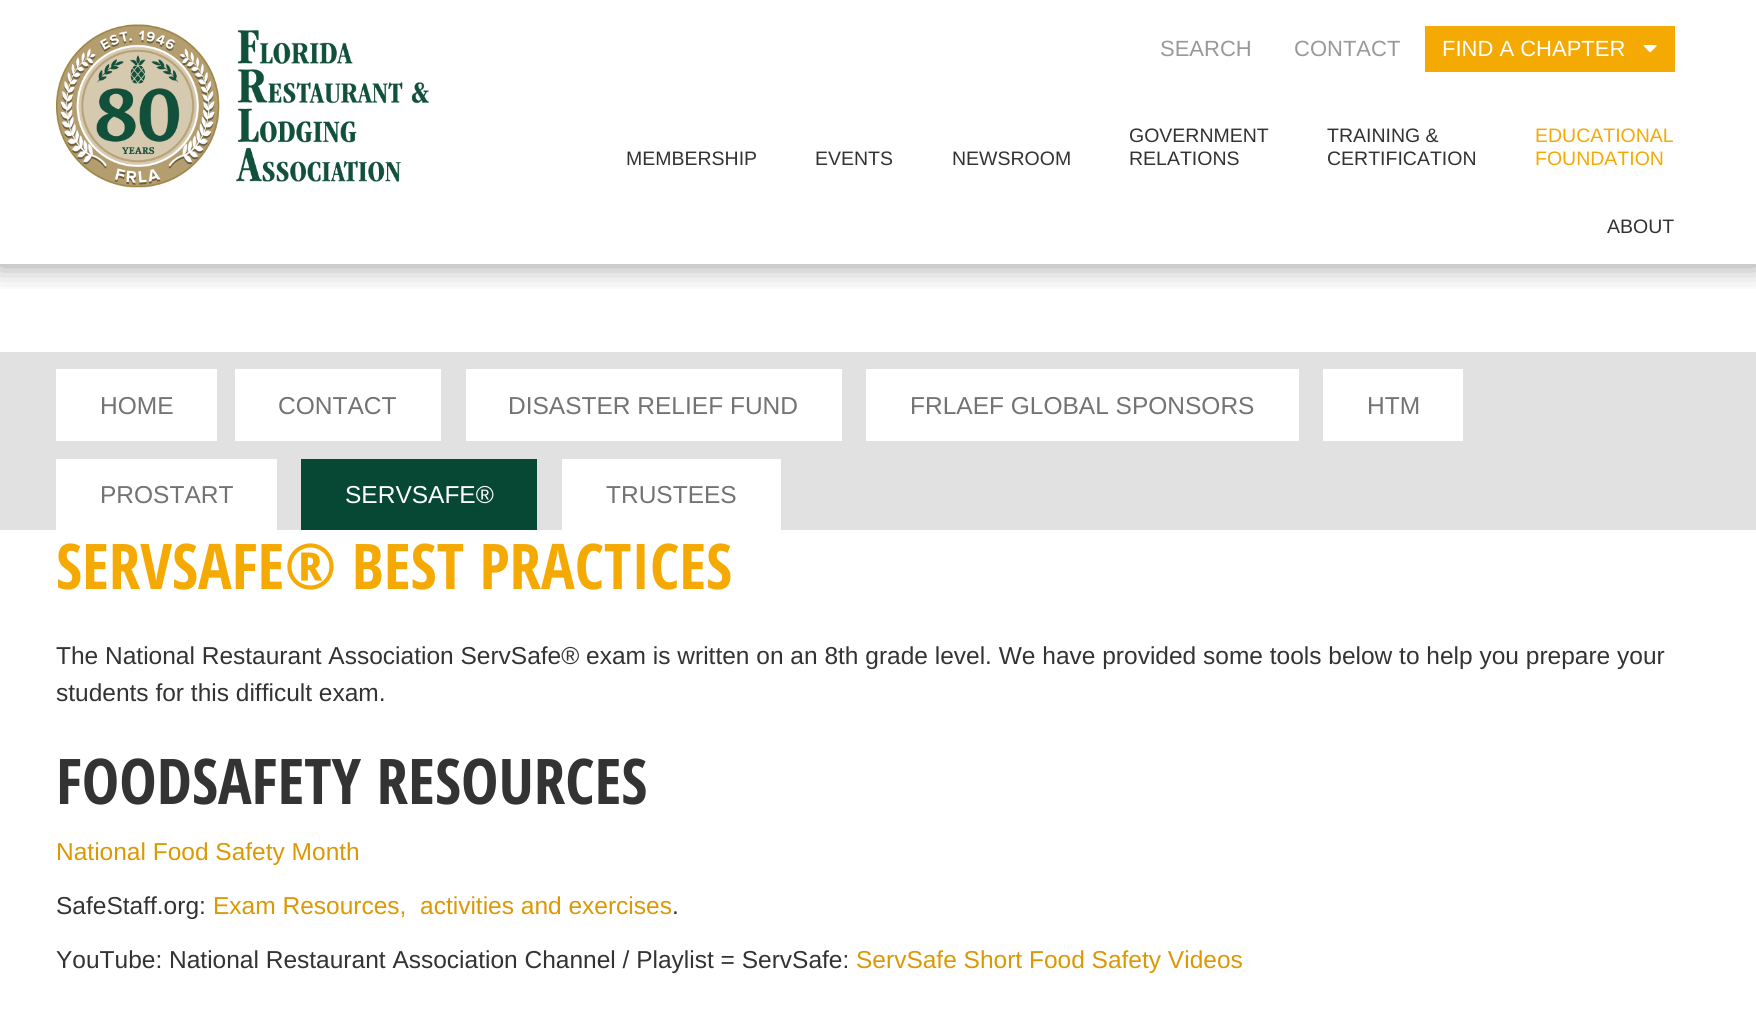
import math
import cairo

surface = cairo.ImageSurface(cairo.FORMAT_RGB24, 1756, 1011)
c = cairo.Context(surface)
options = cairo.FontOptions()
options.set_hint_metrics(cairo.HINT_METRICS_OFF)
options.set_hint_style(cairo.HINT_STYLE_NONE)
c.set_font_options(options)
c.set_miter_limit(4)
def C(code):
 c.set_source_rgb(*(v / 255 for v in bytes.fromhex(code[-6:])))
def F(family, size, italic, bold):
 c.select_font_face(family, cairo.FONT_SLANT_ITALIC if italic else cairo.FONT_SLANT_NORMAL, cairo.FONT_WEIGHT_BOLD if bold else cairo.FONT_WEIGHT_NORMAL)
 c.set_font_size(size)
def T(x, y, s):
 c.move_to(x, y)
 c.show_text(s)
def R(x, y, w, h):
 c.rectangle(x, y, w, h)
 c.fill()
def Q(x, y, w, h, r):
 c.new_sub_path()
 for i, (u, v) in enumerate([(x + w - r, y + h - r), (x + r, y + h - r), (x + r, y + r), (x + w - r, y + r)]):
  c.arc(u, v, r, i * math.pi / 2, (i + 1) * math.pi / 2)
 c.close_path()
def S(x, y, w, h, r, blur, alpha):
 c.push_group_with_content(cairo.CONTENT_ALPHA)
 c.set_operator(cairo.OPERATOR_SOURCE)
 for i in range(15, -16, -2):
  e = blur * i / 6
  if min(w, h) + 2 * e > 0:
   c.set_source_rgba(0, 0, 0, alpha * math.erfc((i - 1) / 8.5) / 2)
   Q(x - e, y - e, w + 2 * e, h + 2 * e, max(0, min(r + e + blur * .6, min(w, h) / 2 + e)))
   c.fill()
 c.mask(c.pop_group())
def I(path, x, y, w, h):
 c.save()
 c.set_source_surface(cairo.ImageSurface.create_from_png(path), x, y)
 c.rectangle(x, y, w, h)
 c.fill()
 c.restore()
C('ffffff')
c.paint()
c.save()
c.rectangle(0,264,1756,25)
c.clip()
C('000000')
S(-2,-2,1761,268,0,14,.4)
c.restore()
I('1.png',56,24,373,164)
F('Liberation Sans',22,0,0)
C('999999')
T(1160,56,'SEARCH')
T(1294,56,'CONTACT')
C('f5a903')
R(1425,26,250,46)
C('ffffff')
T(1442,56,'FIND A CHAPTER')
I('2.png',1643,45,14,8)
F('Liberation Sans',19.5,0,0)
C('333333')
T(626,165,'MEMBERSHIP')
T(815,165,'EVENTS')
T(952,165,'NEWSROOM')
T(1129,142,'GOVERNMENT')
T(1129,165,'RELATIONS')
T(1327,142,'TRAINING &')
T(1327,165,'CERTIFICATION')
C('f5a903')
T(1535,142,'EDUCATIONAL')
T(1535,165,'FOUNDATION')
C('333333')
T(1607,233,'ABOUT')
C('e1e1e1')
R(0,352,1756,178)
C('ffffff')
R(56,369,161,72)
F('Liberation Sans',24.5,0,0)
C('737373')
T(100,414,'HOME')
C('ffffff')
R(235,369,206,72)
C('737373')
T(278,414,'CONTACT')
C('ffffff')
R(466,369,376,72)
C('737373')
T(508,414,'DISASTER RELIEF FUND')
C('ffffff')
R(866,369,433,72)
C('737373')
T(910,414,'FRLAEF GLOBAL SPONSORS')
C('ffffff')
R(1323,369,140,72)
C('737373')
T(1367,414,'HTM')
C('ffffff')
R(56,459,221,71)
C('737373')
T(100,503,'PROSTART')
C('074834')
R(301,459,236,71)
C('ffffff')
T(345,503,'SERVSAFE®')
R(562,459,219,71)
C('737373')
T(606,503,'TRUSTEES')
F('Open Sans Condensed',63,0,1)
C('f5a903')
T(56,589,'SERVSAFE® BEST PRACTICES')
F('Liberation Sans',24.5,0,0)
C('333333')
T(56,664,'The National Restaurant Association ServSafe® exam is written on an 8th grade level. We have provided some tools below to help you prepare your')
T(56,701,'students for this difficult exam.')
F('Open Sans Condensed',63,0,1)
T(56,804,'FOODSAFETY RESOURCES')
F('Liberation Sans',24.5,0,0)
C('dc9803')
T(56,860,'National Food Safety Month')
C('333333')
T(56,914,'SafeStaff.org:')
C('dc9803')
T(213,914,'Exam Resources,')
T(420,914,'activities and exercises')
C('333333')
T(672,914,'.')
T(56,968,'YouTube: National Restaurant Association Channel / Playlist = ServSafe:')
C('dc9803')
T(856,968,'ServSafe Short Food Safety Videos')
surface.write_to_png('o.png')
